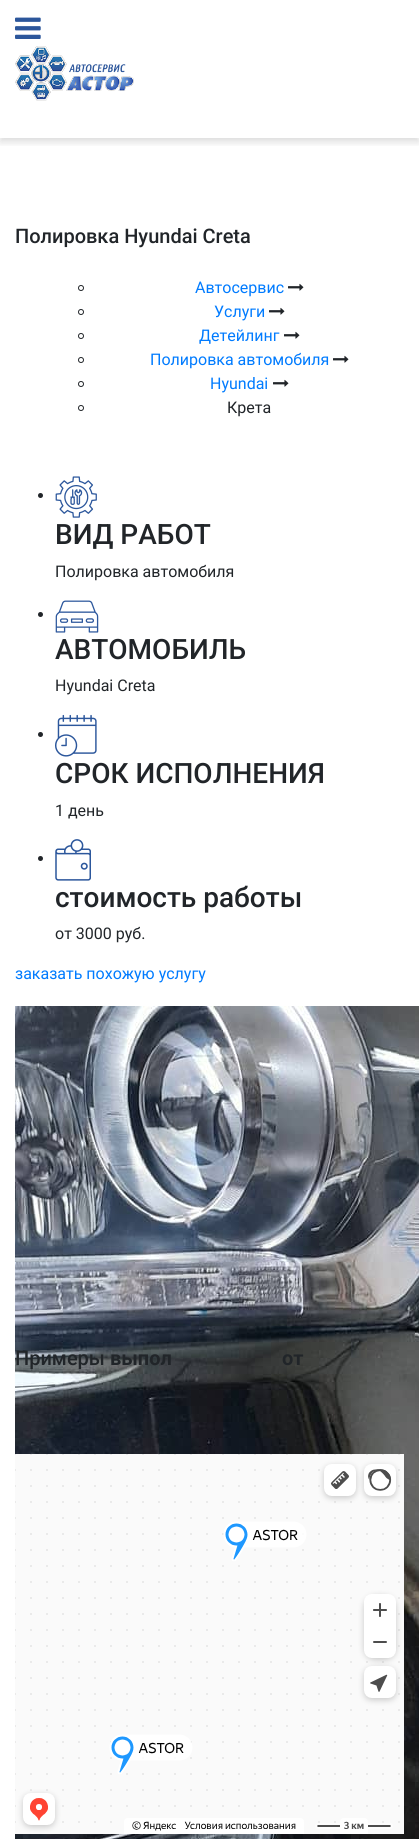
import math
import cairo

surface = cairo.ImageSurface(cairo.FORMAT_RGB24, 419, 1839)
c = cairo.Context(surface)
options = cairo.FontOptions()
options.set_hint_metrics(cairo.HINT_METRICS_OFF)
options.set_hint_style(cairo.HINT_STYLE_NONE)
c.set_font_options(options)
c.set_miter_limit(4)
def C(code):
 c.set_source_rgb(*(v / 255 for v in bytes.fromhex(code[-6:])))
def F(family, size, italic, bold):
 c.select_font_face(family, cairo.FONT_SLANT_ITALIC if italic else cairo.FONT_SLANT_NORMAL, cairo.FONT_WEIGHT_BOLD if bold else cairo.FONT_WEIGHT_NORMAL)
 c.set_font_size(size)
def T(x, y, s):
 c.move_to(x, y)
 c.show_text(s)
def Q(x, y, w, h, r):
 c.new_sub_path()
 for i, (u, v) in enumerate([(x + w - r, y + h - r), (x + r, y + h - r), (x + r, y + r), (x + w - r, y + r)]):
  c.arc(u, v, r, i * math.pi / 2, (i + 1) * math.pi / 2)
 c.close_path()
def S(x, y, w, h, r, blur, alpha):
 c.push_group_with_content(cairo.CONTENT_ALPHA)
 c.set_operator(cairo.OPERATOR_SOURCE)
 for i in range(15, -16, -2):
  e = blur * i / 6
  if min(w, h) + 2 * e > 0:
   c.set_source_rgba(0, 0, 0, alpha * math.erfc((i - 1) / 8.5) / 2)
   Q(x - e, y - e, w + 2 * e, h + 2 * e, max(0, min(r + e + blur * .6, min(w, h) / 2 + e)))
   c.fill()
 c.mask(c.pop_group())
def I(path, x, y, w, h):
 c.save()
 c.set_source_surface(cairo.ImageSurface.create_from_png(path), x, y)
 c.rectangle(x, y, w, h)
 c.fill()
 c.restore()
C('ffffff')
c.paint()
c.save()
c.rectangle(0,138,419,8)
c.clip()
C('000000')
S(0,4,419,138,0,4,.14)
c.restore()
I('1.png',15,17,26,22)
I('2.png',15,46,119,55)
F('Roboto Medium',20,0,0)
C('212529')
T(15,243,'Полировка Hyundai Creta')
c.new_path()
c.arc(81,288,2.5,0,2 * math.pi)
c.set_line_width(1)
c.stroke()
F('Roboto',16,0,0)
C('007bff')
T(195,293,'Автосервис')
I('3.png',288,283,16,8)
c.arc(81,312,2.5,0,2 * math.pi)
C('212529')
c.stroke()
C('007bff')
T(214,317,'Услуги')
I('3.png',269,307,16,8)
c.arc(81,336,2.5,0,2 * math.pi)
C('212529')
c.stroke()
C('007bff')
T(199,341,'Детейлинг')
I('3.png',284,331,16,8)
c.arc(81,360,2.5,0,2 * math.pi)
C('212529')
c.stroke()
C('007bff')
T(150,365,'Полировка автомобиля')
I('3.png',333,355,16,8)
c.arc(81,384,2.5,0,2 * math.pi)
C('212529')
c.stroke()
C('007bff')
T(210,389,'Hyundai')
I('3.png',273,379,16,8)
c.arc(81,408,2.5,0,2 * math.pi)
C('212529')
c.stroke()
T(227,413,'Крета')
c.new_path()
c.arc(40.5,495.5,2.5,0,2 * math.pi)
c.fill()
I('4.png',55,476,42,42)
F('Roboto Medium',28,0,0)
T(55,544,'ВИД РАБОТ')
F('Roboto',16,0,0)
T(55,577,'Полировка автомобиля')
c.new_path()
c.arc(40.5,614.5,2.5,0,2 * math.pi)
c.fill()
I('5.png',55,600,44,33)
F('Roboto Medium',28,0,0)
T(55,659,'АВТОМОБИЛЬ')
F('Roboto',16,0,0)
T(55,691,'Hyundai Creta')
c.new_path()
c.arc(40.5,734.5,2.5,0,2 * math.pi)
c.fill()
I('6.png',55,714,42,43)
F('Roboto Medium',28,0,0)
T(55,783,'СРОК ИСПОЛНЕНИЯ')
F('Roboto',16,0,0)
T(55,816,'1 день')
c.new_path()
c.arc(40.5,858.5,2.5,0,2 * math.pi)
c.fill()
I('7.png',55,839,36,42)
F('Roboto Medium',28,0,0)
T(55,907,'стоимость работы')
F('Roboto',16,0,0)
T(55,939,'от 3000 руб.')
C('007bff')
T(15,979,'заказать похожую услугу')
I('8.png',15,1006,404,833)
F('Roboto Medium',20,0,0)
C('212529')
T(15,1365,'Примеры')
F('Roboto',20,0,1)
T(110,1365,'выпол')
T(282,1365,'от')
I('9.png',15,1454,389,380)
surface.write_to_png('o.png')
